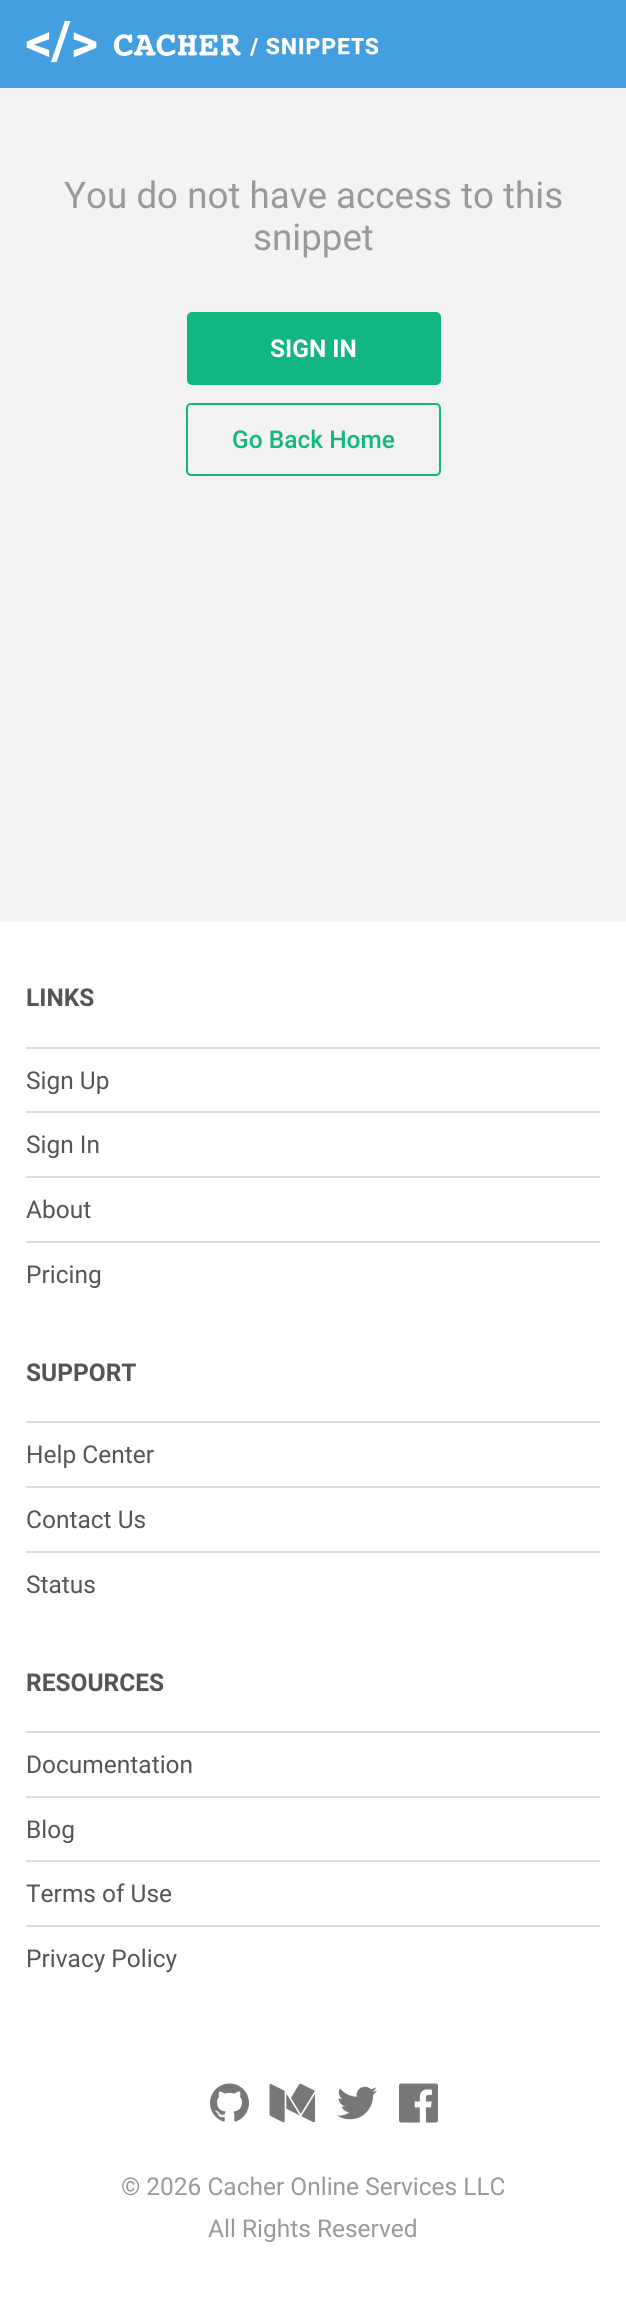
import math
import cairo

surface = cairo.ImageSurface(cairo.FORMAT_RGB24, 626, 2310)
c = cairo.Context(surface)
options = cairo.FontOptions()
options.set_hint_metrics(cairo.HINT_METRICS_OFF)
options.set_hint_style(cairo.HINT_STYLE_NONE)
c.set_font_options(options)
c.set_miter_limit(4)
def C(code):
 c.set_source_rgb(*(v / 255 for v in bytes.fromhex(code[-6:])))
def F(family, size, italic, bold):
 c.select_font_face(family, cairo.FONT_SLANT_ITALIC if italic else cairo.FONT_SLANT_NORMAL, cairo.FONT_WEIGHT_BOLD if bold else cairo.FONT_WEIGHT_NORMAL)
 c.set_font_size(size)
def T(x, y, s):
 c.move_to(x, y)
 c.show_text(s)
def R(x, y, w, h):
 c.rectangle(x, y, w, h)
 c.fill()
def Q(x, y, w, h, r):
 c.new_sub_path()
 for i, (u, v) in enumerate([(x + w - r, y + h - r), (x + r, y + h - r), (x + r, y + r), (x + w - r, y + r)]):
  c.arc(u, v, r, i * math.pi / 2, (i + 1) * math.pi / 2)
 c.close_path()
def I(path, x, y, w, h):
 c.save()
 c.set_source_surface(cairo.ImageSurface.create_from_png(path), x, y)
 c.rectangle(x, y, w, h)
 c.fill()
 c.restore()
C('f3f3f3')
c.paint()
C('439fe0')
R(0,0,626,88)
I('1.png',26,21,353,42)
F('Roboto',36.75,0,0)
C('999999')
T(64,208,'You do not have access to this')
T(253,250,'snippet')
C('11b683')
Q(188,313,252,71,4)
c.fill_preserve()
c.stroke()
F('Roboto',24.5,0,1)
C('ffffff')
T(270,357,'SIGN IN')
Q(187,404,253,71,4)
C('11b683')
c.stroke()
F('Roboto Medium',24.5,0,0)
T(232,448,'Go Back Home')
C('ffffff')
R(0,922,626,1388)
F('Roboto',24.5,0,1)
C('555555')
T(26,1006,'LINKS')
C('dddddd')
R(26,1047,574,2)
F('Roboto',24.5,0,0)
C('555555')
T(26,1089,'Sign Up')
C('dddddd')
R(26,1111,574,2)
C('555555')
T(26,1153,'Sign In')
C('dddddd')
R(26,1176,574,2)
C('555555')
T(26,1218,'About')
C('dddddd')
R(26,1241,574,2)
C('555555')
T(26,1283,'Pricing')
F('Roboto',24.5,0,1)
T(26,1381,'SUPPORT')
C('dddddd')
R(26,1421,574,2)
F('Roboto',24.5,0,0)
C('555555')
T(26,1463,'Help Center')
C('dddddd')
R(26,1486,574,2)
C('555555')
T(26,1528,'Contact Us')
C('dddddd')
R(26,1551,574,2)
C('555555')
T(26,1593,'Status')
F('Roboto',24.5,0,1)
T(26,1691,'RESOURCES')
C('dddddd')
R(26,1731,574,2)
F('Roboto',24.5,0,0)
C('555555')
T(26,1773,'Documentation')
C('dddddd')
R(26,1796,574,2)
C('555555')
T(26,1838,'Blog')
C('dddddd')
R(26,1860,574,2)
C('555555')
T(26,1902,'Terms of Use')
C('dddddd')
R(26,1925,574,2)
C('555555')
T(26,1967,'Privacy Policy')
I('2.png',210,2083,39,39)
I('3.png',269,2083,46,40)
I('4.png',337,2086,40,34)
I('5.png',399,2083,39,40)
C('999999')
T(121,2195,'© 2026 Cacher Online Services LLC')
T(208,2237,'All Rights Reserved')
surface.write_to_png('o.png')
